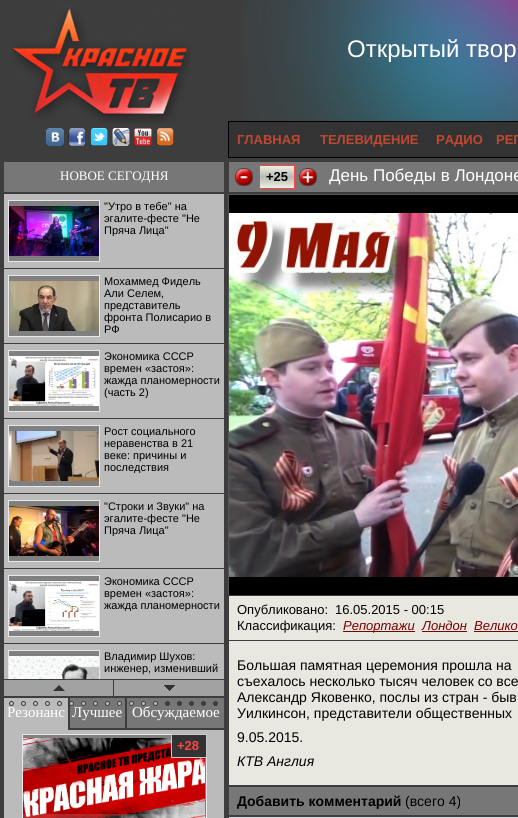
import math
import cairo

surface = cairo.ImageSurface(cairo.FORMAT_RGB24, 518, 818)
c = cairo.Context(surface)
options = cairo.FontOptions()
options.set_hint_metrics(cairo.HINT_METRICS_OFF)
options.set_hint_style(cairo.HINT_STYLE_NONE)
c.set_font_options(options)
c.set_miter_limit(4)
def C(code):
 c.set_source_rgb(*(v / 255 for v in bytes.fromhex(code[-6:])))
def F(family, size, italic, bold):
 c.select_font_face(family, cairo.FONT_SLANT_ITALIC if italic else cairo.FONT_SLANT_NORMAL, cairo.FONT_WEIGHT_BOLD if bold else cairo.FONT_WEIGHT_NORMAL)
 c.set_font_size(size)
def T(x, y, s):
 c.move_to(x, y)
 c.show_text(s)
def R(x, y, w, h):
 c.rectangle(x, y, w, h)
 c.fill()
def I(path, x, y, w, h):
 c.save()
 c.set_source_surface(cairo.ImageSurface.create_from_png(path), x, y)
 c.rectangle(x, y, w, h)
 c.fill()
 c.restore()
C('3d3d3d')
c.paint()
I('1.png',12,6,179,118)
I('2.png',46,128,18,18)
I('3.png',68,128,18,18)
I('4.png',90,128,18,18)
I('5.png',112,128,18,18)
I('6.png',134,128,18,18)
I('7.png',156,128,18,18)
I('8.png',244,0,274,121)
F('Liberation Sans',24,0,0)
C('ffffff')
T(347,57,'Открытый твор')
c.rectangle(228.5,121.5,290,36)
C('000000')
c.set_line_width(1)
c.stroke()
C('333333')
R(229,122,289,35)
F('Liberation Sans',13,0,1)
C('bf4833')
T(237,144,'ГЛАВНАЯ')
T(320,144,'ТЕЛЕВИДЕНИЕ')
T(436,144,'РАДИО')
T(496,144,'РЕГ')
C('777777')
R(4,162,220,30)
F('Liberation Serif',13,0,0)
C('ffffff')
T(60,180,'НОВОЕ СЕГОДНЯ')
C('bbbbbb')
R(4,194,220,485)
C('808080')
c.rectangle(8.5,200.5,91,61)
c.fill_preserve()
C('e8e8ec')
c.stroke()
I('9.png',9,206,90,50)
F('Liberation Sans',11,0,0)
C('000000')
T(104,210,'"Утро в тебе" на')
T(104,222,'эгалите-фесте "Не')
c.save()
c.rectangle(104,200,116,36)
c.clip()
T(104,234,'Пряча Лица"')
c.restore()
C('3d3d3d')
R(4,268,220,1)
C('808080')
c.rectangle(8.5,275.5,91,61)
c.fill_preserve()
C('e8e8ec')
c.stroke()
I('10.png',9,281,90,50)
C('000000')
T(104,285,'Мохаммед Фидель')
T(104,297,'Али Селем,')
T(104,309,'представитель')
T(104,321,'фронта Полисарио в')
T(104,333,'РФ')
C('3d3d3d')
R(4,343,220,1)
C('808080')
c.rectangle(8.5,350.5,91,61)
c.fill_preserve()
C('e8e8ec')
c.stroke()
I('11.png',9,356,90,50)
C('000000')
T(104,360,'Экономика СССР')
T(104,372,'времен «застоя»:')
T(104,384,'жажда планомерности')
c.save()
c.rectangle(104,350,116,48)
c.clip()
T(104,396,'(часть 2)')
c.restore()
C('3d3d3d')
R(4,418,220,1)
C('808080')
c.rectangle(8.5,425.5,91,61)
c.fill_preserve()
C('e8e8ec')
c.stroke()
I('12.png',9,431,90,50)
C('000000')
T(104,435,'Рост социального')
T(104,447,'неравенства в 21')
T(104,459,'веке: причины и')
c.save()
c.rectangle(104,425,116,48)
c.clip()
T(104,471,'последствия')
c.restore()
C('3d3d3d')
R(4,493,220,1)
C('808080')
c.rectangle(8.5,500.5,91,61)
c.fill_preserve()
C('e8e8ec')
c.stroke()
I('13.png',9,506,90,50)
C('000000')
T(104,510,'"Строки и Звуки" на')
T(104,522,'эгалите-фесте "Не')
c.save()
c.rectangle(104,500,116,36)
c.clip()
T(104,534,'Пряча Лица"')
c.restore()
C('3d3d3d')
R(4,568,220,1)
C('808080')
c.rectangle(8.5,575.5,91,61)
c.fill_preserve()
C('e8e8ec')
c.stroke()
I('14.png',9,581,90,50)
C('000000')
T(104,585,'Экономика СССР')
T(104,597,'времен «застоя»:')
c.save()
c.rectangle(104,575,116,36)
c.clip()
T(104,609,'жажда планомерности')
c.restore()
C('3d3d3d')
R(4,643,220,1)
C('808080')
R(9,651,90,5)
c.save()
c.rectangle(4,194,220,485)
c.clip()
c.rectangle(8.5,650.5,91,61)
C('e8e8ec')
c.stroke()
c.restore()
I('15.png',9,656,90,23)
C('000000')
T(104,660,'Владимир Шухов:')
T(104,672,'инженер, изменивший')
I('16.png',4,680,109,16)
I('17.png',114,680,110,16)
C('bbbbbb')
R(4,698,64,32)
C('bebebe')
c.arc(11.5,703.5,2,0,2 * math.pi)
c.fill_preserve()
C('3d3d3d')
c.stroke()
C('bebebe')
c.arc(23.5,703.5,2,0,2 * math.pi)
c.fill_preserve()
C('3d3d3d')
c.stroke()
C('bebebe')
c.arc(35.5,703.5,2,0,2 * math.pi)
c.fill_preserve()
C('3d3d3d')
c.stroke()
C('bebebe')
c.arc(47.5,703.5,2,0,2 * math.pi)
c.fill_preserve()
C('3d3d3d')
c.stroke()
C('bebebe')
c.arc(59.5,703.5,2,0,2 * math.pi)
c.fill_preserve()
C('3d3d3d')
c.stroke()
C('777777')
R(70,698,55,30)
C('bebebe')
c.arc(71.5,703.5,2,0,2 * math.pi)
c.fill_preserve()
C('3d3d3d')
c.stroke()
C('bebebe')
c.arc(83.5,703.5,2,0,2 * math.pi)
c.fill_preserve()
C('3d3d3d')
c.stroke()
C('bebebe')
c.arc(95.5,703.5,2,0,2 * math.pi)
c.fill_preserve()
C('3d3d3d')
c.stroke()
C('bebebe')
c.arc(107.5,703.5,2,0,2 * math.pi)
c.fill_preserve()
C('3d3d3d')
c.stroke()
C('bebebe')
c.arc(119.5,703.5,2,0,2 * math.pi)
c.fill_preserve()
C('3d3d3d')
c.stroke()
C('777777')
R(127,698,97,30)
C('bebebe')
c.arc(131.5,703.5,2,0,2 * math.pi)
c.fill_preserve()
C('3d3d3d')
c.stroke()
C('bebebe')
c.arc(143.5,703.5,2,0,2 * math.pi)
c.fill_preserve()
C('3d3d3d')
c.stroke()
C('bebebe')
c.arc(155.5,703.5,2,0,2 * math.pi)
c.fill_preserve()
C('3d3d3d')
c.stroke()
c.arc(167.5,703.5,2,0,2 * math.pi)
c.fill_preserve()
c.stroke()
c.arc(179.5,703.5,2,0,2 * math.pi)
c.fill_preserve()
c.stroke()
c.arc(191.5,703.5,2,0,2 * math.pi)
c.fill_preserve()
c.stroke()
c.arc(203.5,703.5,2,0,2 * math.pi)
c.fill_preserve()
c.stroke()
c.arc(215.5,703.5,2,0,2 * math.pi)
c.fill_preserve()
c.stroke()
F('Liberation Serif',15,0,0)
C('ffffff')
T(7,717,'Резонанс')
T(72,717,'Лучшее')
T(132,717,'Обсуждаемое')
C('bbbbbb')
R(4,730,220,88)
c.rectangle(22.5,734.5,184,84)
C('e8e8ec')
c.stroke()
C('808080')
R(23,735,183,83)
I('18.png',23,738,182,80)
c.set_source_rgba(1,1,1,0.15)
R(23,814,183,4)
C('333333')
c.rectangle(171.5,734.5,35,23)
c.fill_preserve()
C('c8c8c8')
c.stroke()
F('Liberation Sans',13,0,1)
C('ff4444')
T(177,750,'+28')
C('777777')
R(229,162,289,30)
I('19.png',235,168,18,18)
gradient = cairo.LinearGradient(277,166,277,188)
gradient.add_color_stop_rgba(0,0.941,0.941,0.878,1)
gradient.add_color_stop_rgba(.5,0.722,0.722,0.722,1)
gradient.add_color_stop_rgba(1,0.941,0.941,0.878,1)
c.set_source(gradient)
R(260,166,34,22)
c.rectangle(259.5,165.5,35,23)
C('ff4444')
c.stroke()
C('000000')
T(266,181,'+25')
I('20.png',299,168,18,18)
F('Liberation Sans',17,0,0)
C('ffffff')
T(329,181,'День Победы в Лондоне')
C('555555')
R(228,194,290,1)
R(228,194,1,401)
C('000000')
R(229,195,289,400)
I('21.png',229,213,289,364)
C('e8e8e0')
R(229,596,289,44)
F('Liberation Sans',13,0,0)
C('000000')
T(237,614,'Опубликовано:')
T(335,614,'16.05.2015 - 00:15')
T(237,630,'Классификация:')
C('770000')
R(343,631,72,1)
F('Liberation Sans',13,1,0)
T(343,630,'Репортажи')
T(422,630,'Лондон')
R(422,631,45,1)
T(474,630,'Велико')
R(474,631,44,1)
C('e8e8e0')
R(229,641,289,144)
F('Liberation Sans',14,0,0)
C('000000')
T(237,670,'Большая памятная церемония прошла на')
T(237,686,'съехалось несколько тысяч человек со все')
T(237,702,'Александр Яковенко, послы из стран - быв')
T(237,718,'Уилкинсон, представители общественных')
T(237,742,'9.05.2015.')
F('Liberation Sans',14,1,0)
T(237,766,'КТВ Англия')
C('777777')
R(229,787,289,28)
F('Liberation Sans',14,0,1)
C('000000')
T(237,806,'Добавить комментарий')
F('Liberation Sans',14,0,0)
T(405,806,'(всего 4)')
C('d8d8e0')
R(229,817,289,1)
surface.write_to_png('o.png')
